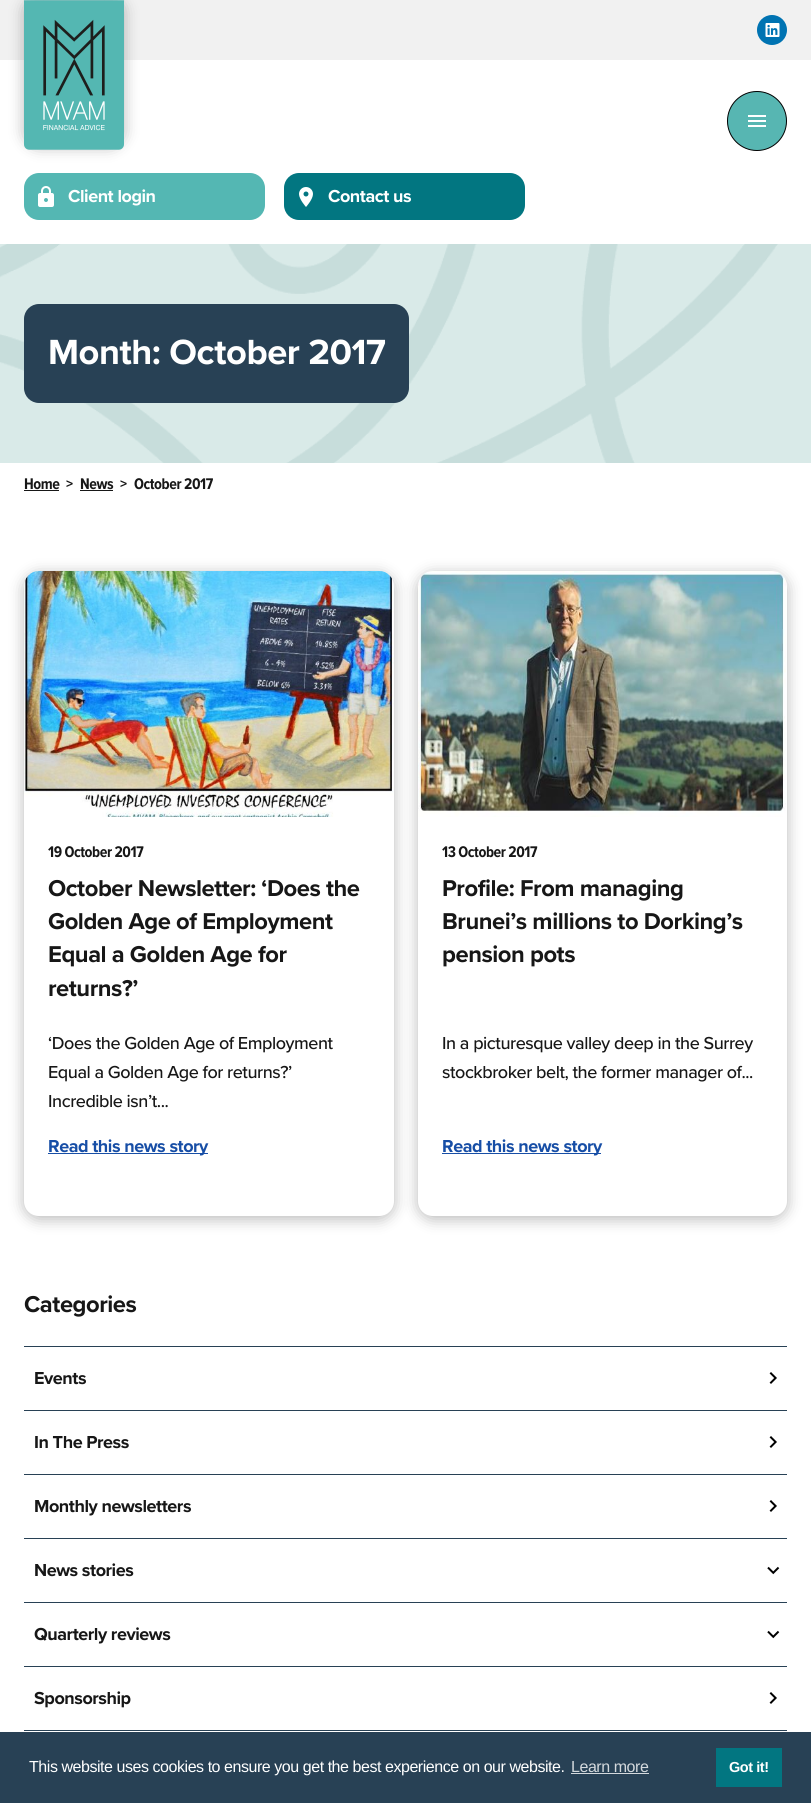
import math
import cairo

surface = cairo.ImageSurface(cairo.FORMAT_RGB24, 811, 1803)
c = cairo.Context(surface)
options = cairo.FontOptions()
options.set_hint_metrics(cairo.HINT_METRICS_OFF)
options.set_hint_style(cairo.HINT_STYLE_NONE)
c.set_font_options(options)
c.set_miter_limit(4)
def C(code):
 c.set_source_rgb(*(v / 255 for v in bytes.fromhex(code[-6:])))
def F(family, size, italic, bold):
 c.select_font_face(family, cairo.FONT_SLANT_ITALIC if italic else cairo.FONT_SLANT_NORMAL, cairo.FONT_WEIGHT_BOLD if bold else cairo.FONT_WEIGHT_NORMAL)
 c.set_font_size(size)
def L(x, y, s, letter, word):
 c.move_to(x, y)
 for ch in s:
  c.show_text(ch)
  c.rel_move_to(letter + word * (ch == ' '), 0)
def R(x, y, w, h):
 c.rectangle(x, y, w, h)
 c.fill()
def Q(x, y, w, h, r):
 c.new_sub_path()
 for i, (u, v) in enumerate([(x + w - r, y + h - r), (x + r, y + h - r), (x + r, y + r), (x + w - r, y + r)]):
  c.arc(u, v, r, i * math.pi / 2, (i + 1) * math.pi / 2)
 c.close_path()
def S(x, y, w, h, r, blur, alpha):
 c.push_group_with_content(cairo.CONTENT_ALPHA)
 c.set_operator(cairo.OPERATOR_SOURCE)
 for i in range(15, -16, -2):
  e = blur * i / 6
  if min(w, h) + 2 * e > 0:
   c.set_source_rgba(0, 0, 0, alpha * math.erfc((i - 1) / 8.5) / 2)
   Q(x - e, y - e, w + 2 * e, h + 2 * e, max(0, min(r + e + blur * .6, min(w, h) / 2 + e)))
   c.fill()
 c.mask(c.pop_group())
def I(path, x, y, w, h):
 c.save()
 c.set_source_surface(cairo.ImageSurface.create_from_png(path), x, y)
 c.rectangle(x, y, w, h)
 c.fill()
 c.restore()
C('ffffff')
c.paint()
C('f1f1f1')
R(0,0,811,60)
C('0073b2')
c.arc(772,30,15,0,2 * math.pi)
c.fill()
I('1.png',765,23,15,14)
C('000000')
S(24,-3,100,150,15,7.5,.28)
I('2.png',24,0,100,150)
C('57b6b2')
c.arc(757,121,29.5,0,2 * math.pi)
c.fill_preserve()
C('000000')
c.set_line_width(1)
c.stroke()
I('3.png',748,115,18,12)
C('54b7b3')
Q(24,173,241,47,15)
c.fill()
I('4.png',38,186,16,21)
F('Proxima Nova',18,0,1)
C('ffffff')
L(68,202,'Client login',-.45,0)
C('027681')
Q(284,173,241,47,15)
c.fill()
I('5.png',299,187,14,20)
C('ffffff')
L(328,202,'Contact us',-.45,0)
C('d9eae8')
R(0,244,811,219)
I('6.png',0,244,778,219)
C('284155')
Q(24,304,385,99,15)
c.fill()
F('Proxima Nova',36.25,0,1)
C('ffffff')
L(48,364,'Month: October 2017',-.45,0)
F('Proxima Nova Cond',16,0,1)
C('171717')
L(24,489,'Home',-.45,0)
R(24,490,35,1)
L(66,489,'>',-.45,0)
L(80,489,'News',-.45,0)
R(80,490,33,1)
L(120,489,'>',-.45,0)
L(134,489,'October 2017',-.45,0)
C('000000')
S(24,574,370,645,15,7.5,.28)
I('7.png',24,571,370,246)
C('ffffff')
c.new_path()
c.move_to(24,817)
c.line_to(394,817)
c.line_to(394,1201)
c.curve_to(394,1209.5,387.5,1216,379,1216)
c.line_to(39,1216)
c.curve_to(30.5,1216,24,1209.5,24,1201)
c.close_path()
c.fill()
C('171717')
L(48,857,'19 October 2017',-.45,0)
F('Proxima Nova',23.75,0,1)
L(48,896,'October Newsletter: ‘Does the',-.45,0)
L(48,929,'Golden Age of Employment',-.45,0)
L(48,962,'Equal a Golden Age for',-.45,0)
L(48,996,'returns?’',-.45,0)
F('Proxima Nova Medium',18,0,0)
L(48,1049,'‘Does the Golden Age of Employment',-.45,0)
L(48,1078,'Equal a Golden Age for returns?’',-.45,0)
L(48,1107,'Incredible isn’t...',-.45,0)
C('174ea6')
R(48,1153,160,1)
F('Proxima Nova',18,0,1)
L(48,1152,'Read this news story',-.45,0)
C('000000')
S(418,574,369,645,15,7.5,.28)
I('8.png',418,571,369,246)
C('ffffff')
c.new_path()
c.move_to(418,817)
c.line_to(787,817)
c.line_to(787,1201)
c.curve_to(787,1209.5,780.5,1216,772,1216)
c.line_to(433,1216)
c.curve_to(424.5,1216,418,1209.5,418,1201)
c.close_path()
c.fill()
F('Proxima Nova Cond',16,0,1)
C('171717')
L(442,857,'13 October 2017',-.45,0)
F('Proxima Nova',23.75,0,1)
L(442,896,'Profile: From managing',-.45,0)
L(442,929,'Brunei’s millions to Dorking’s',-.45,0)
L(442,962,'pension pots',-.45,0)
F('Proxima Nova Medium',18,0,0)
L(442,1049,'In a picturesque valley deep in the Surrey',-.45,0)
L(442,1078,'stockbroker belt, the former manager of...',-.45,0)
C('174ea6')
R(442,1153,159,1)
F('Proxima Nova',18,0,1)
L(442,1152,'Read this news story',-.45,0)
F('Proxima Nova',23.75,0,1)
C('171717')
L(24,1312,'Categories',-.45,0)
C('284155')
R(24,1346,763,1)
R(24,1410,763,1)
F('Proxima Nova',18,0,1)
C('171717')
L(34,1384,'Events',-.45,0)
I('9.png',769,1372,8,12)
C('284155')
R(24,1474,763,1)
C('171717')
L(34,1448,'In The Press',-.45,0)
I('9.png',769,1436,8,12)
C('284155')
R(24,1538,763,1)
C('171717')
L(34,1512,'Monthly newsletters',-.45,0)
I('9.png',769,1500,8,12)
C('284155')
R(24,1602,763,1)
C('171717')
L(34,1576,'News stories',-.45,0)
I('10.png',767,1566,13,9)
C('284155')
R(24,1666,763,1)
C('171717')
L(34,1640,'Quarterly reviews',-.45,0)
I('10.png',767,1630,13,9)
C('284155')
R(24,1730,763,1)
C('171717')
L(34,1704,'Sponsorship',-.45,0)
I('9.png',769,1692,8,12)
C('284155')
R(0,1732,811,71)
F('Liberation Sans',16,0,0)
C('ffffff')
L(29,1772,'This website uses cookies to ensure you get the best experience on our website.',-.45,0)
C('d4d9dd')
L(571,1772,'Learn more',-.45,0)
R(571,1773,78,1)
C('027681')
R(716,1748,66,39)
F('Liberation Sans',14.5,0,1)
C('ffffff')
L(729,1772,'Got it!',-.45,0)
surface.write_to_png('o.png')
